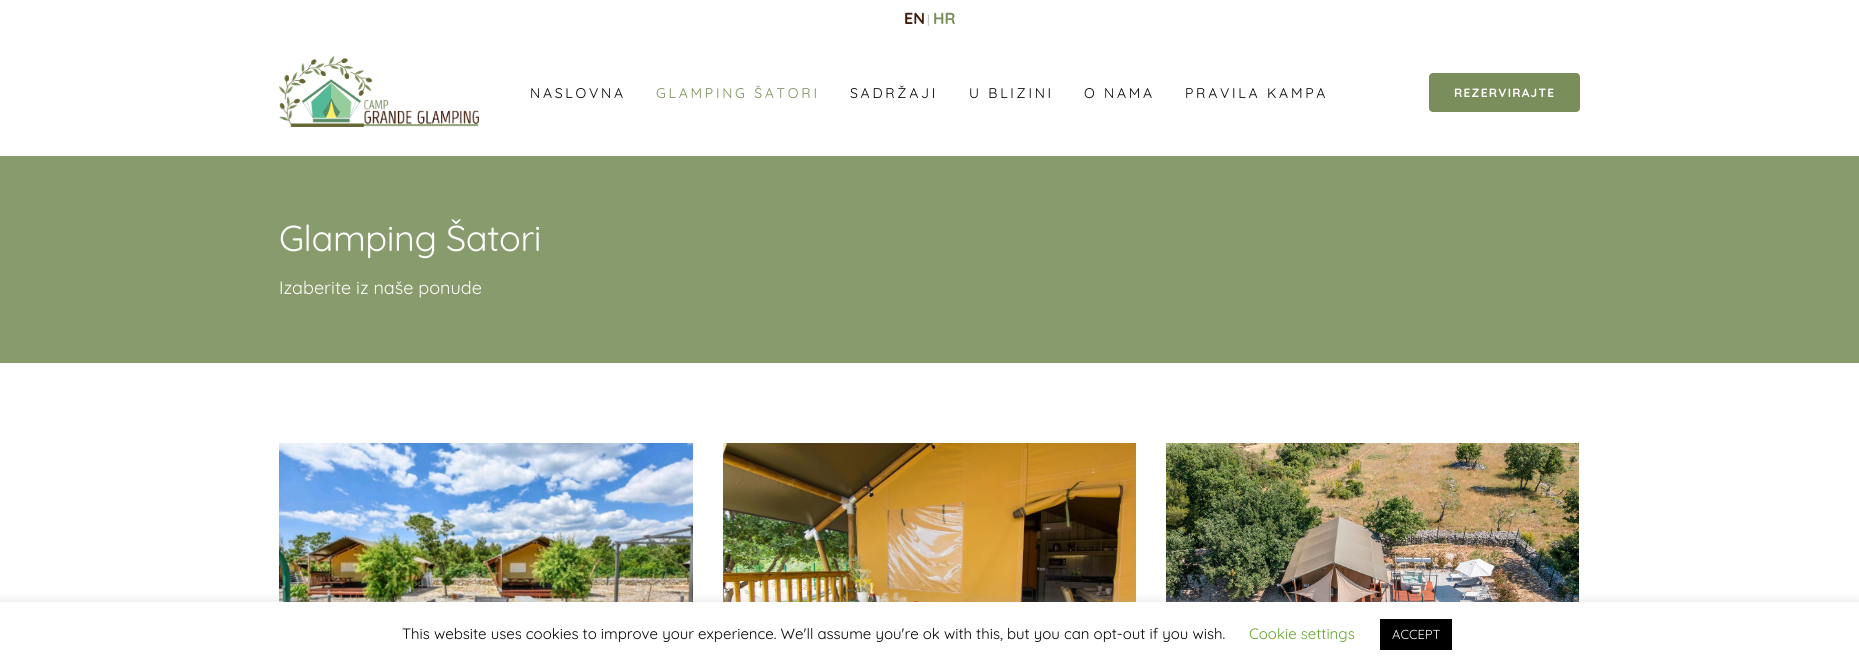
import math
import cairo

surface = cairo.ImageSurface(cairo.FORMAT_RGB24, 1859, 667)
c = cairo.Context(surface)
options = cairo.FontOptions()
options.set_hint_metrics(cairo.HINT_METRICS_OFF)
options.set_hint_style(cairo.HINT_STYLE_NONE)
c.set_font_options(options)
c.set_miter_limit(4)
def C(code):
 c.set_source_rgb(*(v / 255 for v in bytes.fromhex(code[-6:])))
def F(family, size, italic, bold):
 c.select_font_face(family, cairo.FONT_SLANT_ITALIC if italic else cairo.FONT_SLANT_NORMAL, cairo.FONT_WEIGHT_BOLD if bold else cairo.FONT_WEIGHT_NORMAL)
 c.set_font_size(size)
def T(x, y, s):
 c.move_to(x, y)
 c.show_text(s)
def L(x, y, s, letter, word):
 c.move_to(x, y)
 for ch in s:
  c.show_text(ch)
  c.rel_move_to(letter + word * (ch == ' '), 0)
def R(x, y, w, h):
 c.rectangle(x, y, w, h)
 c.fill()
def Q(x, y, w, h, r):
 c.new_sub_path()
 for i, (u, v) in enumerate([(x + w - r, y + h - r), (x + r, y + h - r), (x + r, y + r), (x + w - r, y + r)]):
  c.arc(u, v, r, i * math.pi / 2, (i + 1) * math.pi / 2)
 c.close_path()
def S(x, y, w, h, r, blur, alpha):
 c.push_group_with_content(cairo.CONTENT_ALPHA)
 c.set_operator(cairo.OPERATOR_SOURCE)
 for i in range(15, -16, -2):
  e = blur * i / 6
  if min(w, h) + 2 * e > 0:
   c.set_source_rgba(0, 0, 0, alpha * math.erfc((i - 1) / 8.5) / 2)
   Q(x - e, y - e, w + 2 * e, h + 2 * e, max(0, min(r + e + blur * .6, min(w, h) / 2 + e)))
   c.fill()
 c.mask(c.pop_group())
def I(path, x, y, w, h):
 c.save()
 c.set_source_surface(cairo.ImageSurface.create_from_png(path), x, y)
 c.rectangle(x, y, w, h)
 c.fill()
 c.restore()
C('ffffff')
c.paint()
F('Quicksand',16,0,1)
C('3f1c09')
T(904,24,'EN')
F('Quicksand',12,0,0)
C('a4a4a4')
T(927,24,'|')
F('Quicksand',16,0,1)
C('798e5a')
T(933,24,'HR')
I('1.png',279,56,200,71)
F('Quicksand',14,0,0)
C('000000')
L(530,98,'NASLOVNA',2.75,0)
C('798e5a')
L(656,98,'GLAMPING ŠATORI',2.75,0)
C('000000')
L(850,98,'SADRŽAJI',2.75,0)
L(969,98,'U BLIZINI',2.75,0)
L(1084,98,'O NAMA',2.75,0)
L(1185,98,'PRAVILA KAMPA',2.75,0)
C('798e5a')
Q(1429.5,73.5,150,38,3.5)
c.fill_preserve()
c.set_line_width(1)
c.stroke()
F('Quicksand',12,0,1)
C('ffffff')
L(1454,97,'REZERVIRAJTE',1.25,0)
C('889b6c')
R(0,156,1859,207)
F('Quicksand',36,0,0)
C('ffffff')
L(279,251,'Glamping Šatori',-.4,0)
F('Quicksand',18,0,0)
T(279,294,'Izaberite iz naše ponude')
I('2.png',279,443,414,159)
I('3.png',723,443,413,159)
I('4.png',1166,443,413,159)
C('acabab')
S(0,601,1859,65,0,5,.3)
C('ffffff')
R(0,602,1859,65)
F('Quicksand',15,0,0)
C('000000')
T(402,639,'This website uses cookies to improve your experience. We\'ll assume you\'re ok with this, but you can opt-out if you wish.')
C('62a329')
T(1249,639,'Cookie settings')
C('000000')
R(1380,619,72,31)
F('Quicksand',13,0,0)
C('ffffff')
T(1392,639,'ACCEPT')
surface.write_to_png('o.png')
